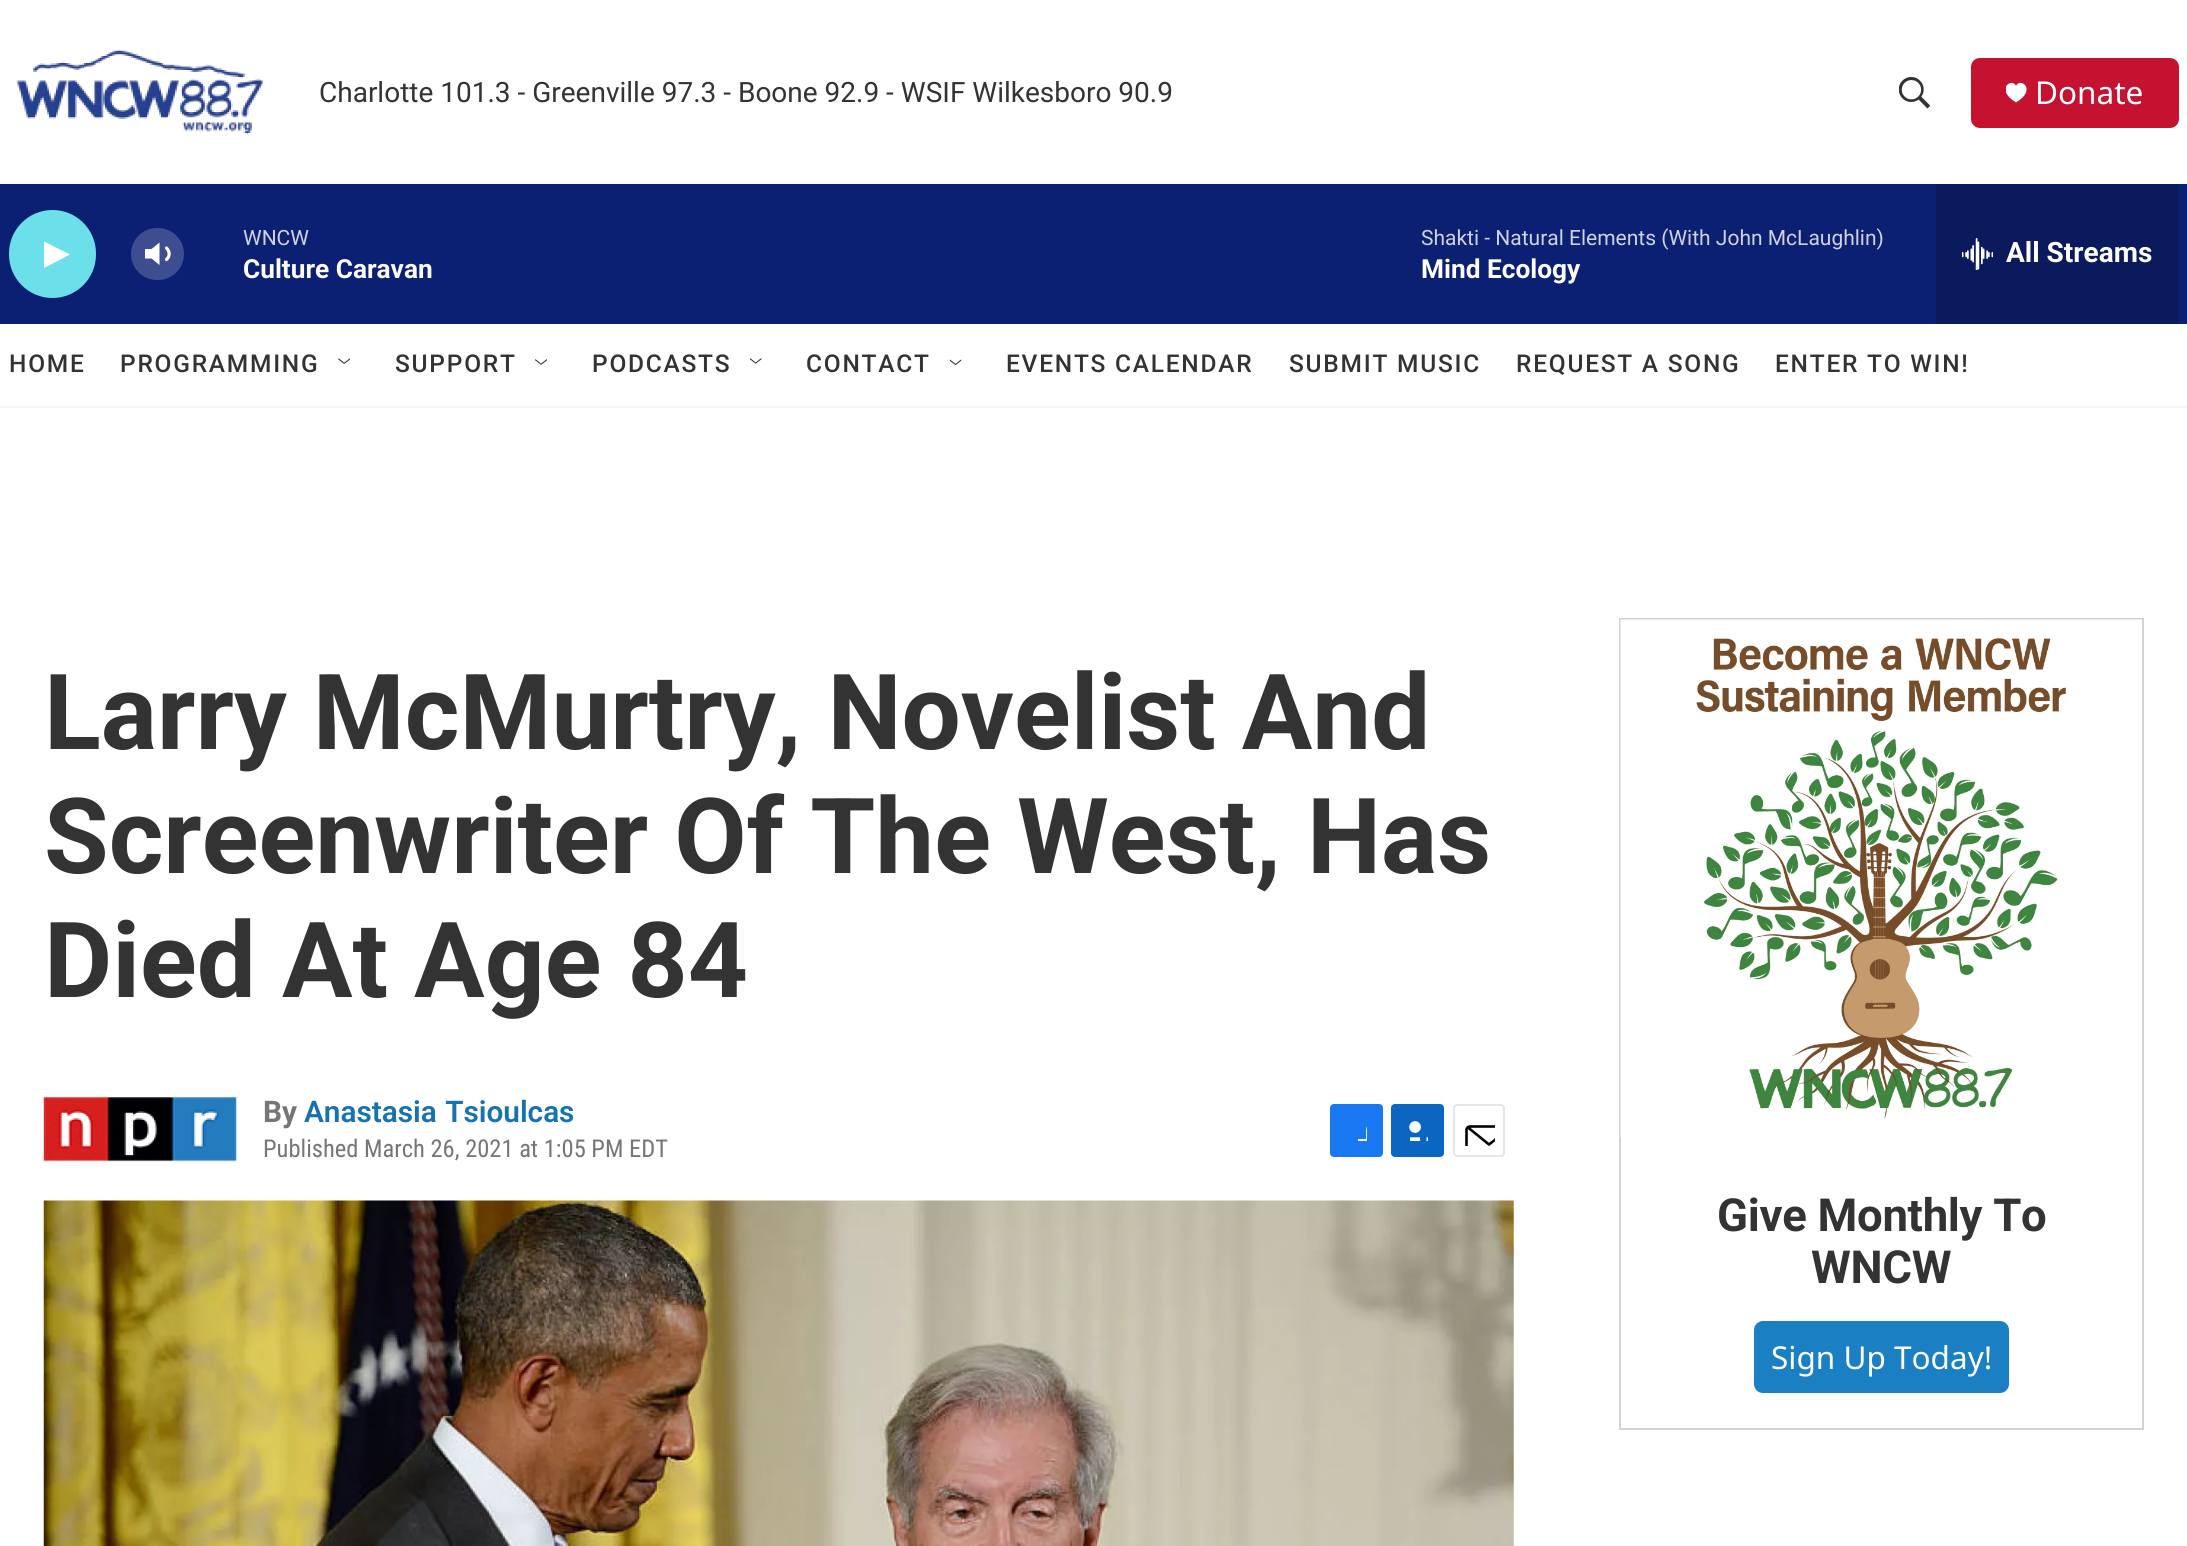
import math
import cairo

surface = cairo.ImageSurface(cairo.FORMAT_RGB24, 2187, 1546)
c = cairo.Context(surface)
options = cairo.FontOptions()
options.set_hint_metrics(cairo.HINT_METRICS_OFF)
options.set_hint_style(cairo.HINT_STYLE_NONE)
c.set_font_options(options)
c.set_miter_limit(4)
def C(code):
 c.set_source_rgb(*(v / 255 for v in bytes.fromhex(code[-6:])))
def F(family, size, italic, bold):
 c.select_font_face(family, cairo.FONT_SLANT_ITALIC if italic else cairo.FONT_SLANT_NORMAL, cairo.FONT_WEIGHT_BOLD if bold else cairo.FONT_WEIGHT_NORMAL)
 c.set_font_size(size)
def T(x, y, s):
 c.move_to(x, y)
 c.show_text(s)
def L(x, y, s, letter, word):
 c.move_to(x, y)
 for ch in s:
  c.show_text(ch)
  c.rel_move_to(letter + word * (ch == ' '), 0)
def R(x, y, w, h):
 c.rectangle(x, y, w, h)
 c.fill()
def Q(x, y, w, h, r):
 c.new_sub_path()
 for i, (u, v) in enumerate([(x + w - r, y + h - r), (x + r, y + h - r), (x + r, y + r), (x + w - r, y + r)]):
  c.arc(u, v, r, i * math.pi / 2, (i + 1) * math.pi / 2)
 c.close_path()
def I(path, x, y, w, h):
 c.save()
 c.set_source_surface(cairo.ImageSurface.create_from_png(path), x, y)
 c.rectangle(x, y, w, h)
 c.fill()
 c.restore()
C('ffffff')
c.paint()
C('f5f5f5')
R(0,406,2187,2)
I('1.png',16,49,248,86)
F('Roboto',28,0,0)
C('333333')
T(319,102,'Charlotte 101.3 - Greenville 97.3 - Boone 92.9 - WSIF Wilkesboro 90.9')
I('2.png',1899,77,31,32)
C('c41230')
Q(1971,58,208,70,9)
c.fill()
c.save()
c.rectangle(2006,82,21,21)
c.clip()
C('ffffff')
c.new_path()
c.move_to(2016,86)
c.curve_to(2012.5,77,1994,89,2016,102.5)
c.curve_to(2038,89,2019.5,77,2016,86)
c.close_path()
c.fill()
c.restore()
F('Noto Sans',31.5,0,0)
C('ffffff')
T(2035,104,'Donate')
C('0c2073')
R(0,184,2187,140)
C('6be0ea')
Q(9,210,87,88,43.5)
c.fill()
C('ffffff')
c.new_path()
c.move_to(44,241.5)
c.line_to(70,254.5)
c.line_to(44,268)
c.close_path()
c.fill()
c.new_path()
c.move_to(159.5,242.5)
c.line_to(151.5,249)
c.line_to(145,249)
c.line_to(145,258.5)
c.line_to(151.5,258.5)
c.line_to(159.5,265)
c.close_path()
c.fill()
c.new_path()
c.move_to(166.5,248)
c.curve_to(170,251.5,170,256.5,166.5,259.5)
c.set_line_width(3.2)
c.set_line_cap(cairo.LINE_CAP_ROUND)
c.set_line_join(cairo.LINE_JOIN_ROUND)
c.stroke()
c.set_source_rgba(1,1,1,0.2)
Q(131,228,53,52,26)
c.fill()
F('Roboto',21,0,0)
C('ced2e3')
T(243,245,'WNCW')
F('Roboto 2',26.25,0,1)
C('ffffff')
T(243,278,'Culture Caravan')
F('Roboto',21,0,0)
C('ced2e3')
T(1421,245,'Shakti - Natural Elements (With John McLaughlin)')
F('Roboto 2',26.25,0,1)
C('ffffff')
T(1421,278,'Mind Ecology')
C('0a1a5c')
R(1936,184,243,140)
I('3.png',1962,238,31,32)
F('Roboto 2',28,0,1)
C('ffffff')
T(2006,262,'All Streams')
F('Roboto Medium',24.5,0,0)
C('333333')
L(9,372,'HOME',1.75,0)
L(120,372,'PROGRAMMING',1.75,0)
I('4.png',338,358,12,6)
L(395,372,'SUPPORT',1.75,0)
I('5.png',535,359,12,6)
L(592,372,'PODCASTS',1.75,0)
I('6.png',749,358,13,6)
L(806,372,'CONTACT',1.75,0)
I('7.png',949,359,13,6)
L(1006,372,'EVENTS CALENDAR',1.75,0)
L(1289,372,'SUBMIT MUSIC',1.75,0)
L(1516,372,'REQUEST A SONG',1.75,0)
L(1775,372,'ENTER TO WIN!',1.75,0)
F('Roboto',105,0,1)
T(44,749,'Larry McMurtry, Novelist And')
T(44,873,'Screenwriter Of The West, Has')
T(44,997,'Died At Age 84')
I('8.png',43,1097,194,65)
F('Roboto',29.75,0,1)
C('767676')
T(263,1122,'By')
F('Roboto SemiBold',29.75,0,0)
C('1772b0')
L(304,1122,'Anastasia Tsioulcas',0,1)
F('Roboto Condensed',24.5,0,0)
C('767676')
T(263,1157,'Published March 26, 2021 at 1:05 PM EDT')
C('1778f2')
Q(1330,1104,53,53,4)
c.fill()
c.save()
c.rectangle(1346,1120,21,21)
c.clip()
C('ffffff')
c.new_path()
c.move_to(1375,1157)
c.line_to(1366,1157)
c.line_to(1366,1148)
c.line_to(1358,1148)
c.line_to(1358,1139)
c.line_to(1366,1139)
c.line_to(1366,1130)
c.curve_to(1367,1121.5,1375.5,1120,1383,1121)
c.line_to(1383,1129)
c.curve_to(1373.5,1129,1375,1131.5,1375,1139)
c.line_to(1383,1139)
c.line_to(1382,1148)
c.line_to(1375,1148)
c.close_path()
c.fill()
c.restore()
C('0a66c1')
Q(1391,1104,53,53,4)
c.fill()
I('9.png',1409,1121,19,20)
Q(1454,1105,50,51,3)
C('e6e6e6')
c.set_line_width(2)
c.set_line_cap(cairo.LINE_CAP_BUTT)
c.set_line_join(cairo.LINE_JOIN_MITER)
c.stroke()
c.save()
c.rectangle(1463,1115,32,31)
c.clip()
c.new_path()
c.move_to(1512,1153)
c.curve_to(1512,1155,1510.5,1156.5,1508.5,1156.5)
c.line_to(1470,1156.5)
c.curve_to(1468,1156.5,1466.5,1155,1466.5,1153)
c.line_to(1466.5,1129.5)
c.curve_to(1466.5,1128,1468,1126.5,1470,1126.5)
c.line_to(1508.5,1126.5)
c.curve_to(1510.5,1126.5,1512,1128,1512,1129.5)
c.close_path()
c.move_to(1510.5,1127.5)
c.line_to(1489,1144.5)
c.line_to(1468,1127.5)
C('000000')
c.set_line_width(2.6)
c.set_line_cap(cairo.LINE_CAP_ROUND)
c.set_line_join(cairo.LINE_JOIN_ROUND)
c.stroke()
c.restore()
I('10.png',43,1200,1471,346)
c.rectangle(1620,619,523,810)
C('d3d3d3')
c.stroke()
I('11.png',1620,619,522,519)
F('Roboto',45.5,0,1)
C('333333')
L(1717,1231,'Give Monthly To',-.3,0)
L(1811,1283,'WNCW',-.3,0)
C('1a7fc3')
Q(1754,1321,255,72,9)
c.fill()
F('Noto Sans',31.5,0,0)
C('ffffff')
T(1771,1369,'Sign Up Today!')
surface.write_to_png('o.png')
